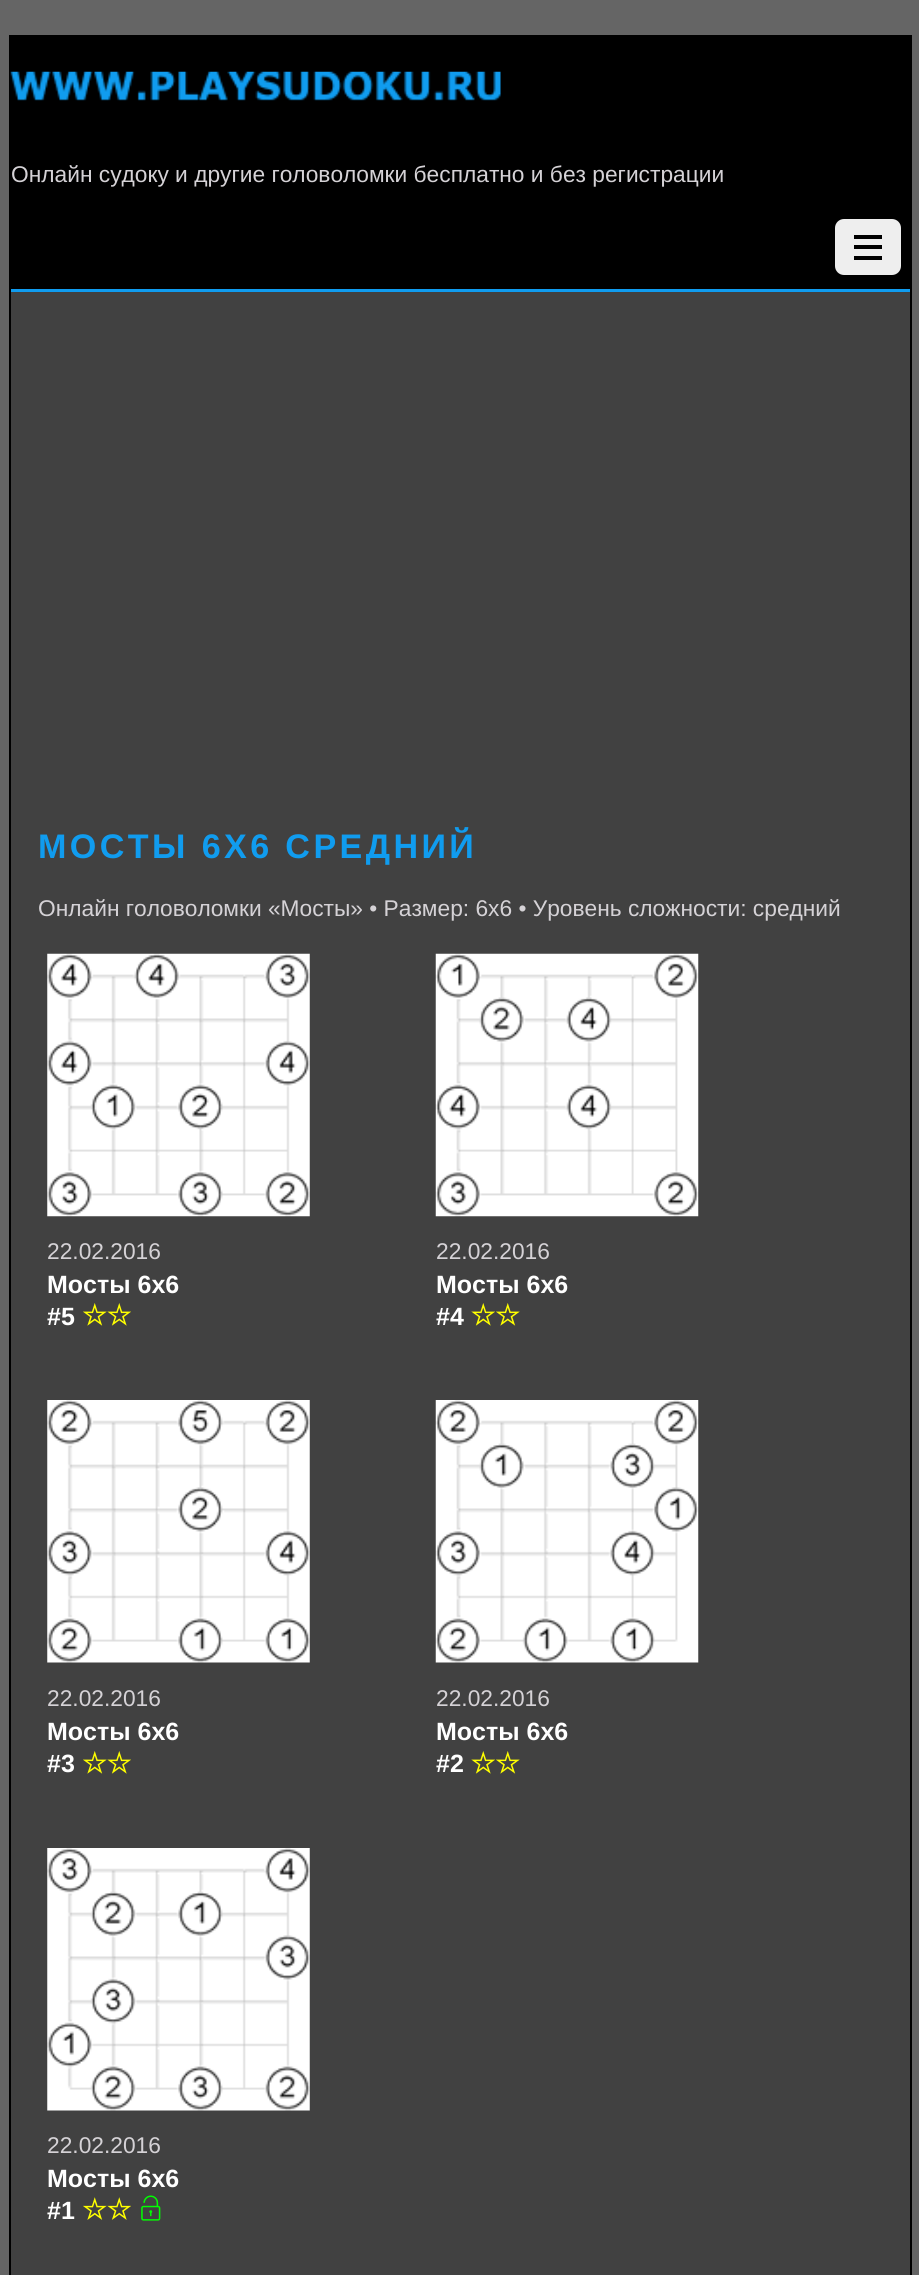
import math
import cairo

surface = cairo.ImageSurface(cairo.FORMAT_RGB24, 919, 2275)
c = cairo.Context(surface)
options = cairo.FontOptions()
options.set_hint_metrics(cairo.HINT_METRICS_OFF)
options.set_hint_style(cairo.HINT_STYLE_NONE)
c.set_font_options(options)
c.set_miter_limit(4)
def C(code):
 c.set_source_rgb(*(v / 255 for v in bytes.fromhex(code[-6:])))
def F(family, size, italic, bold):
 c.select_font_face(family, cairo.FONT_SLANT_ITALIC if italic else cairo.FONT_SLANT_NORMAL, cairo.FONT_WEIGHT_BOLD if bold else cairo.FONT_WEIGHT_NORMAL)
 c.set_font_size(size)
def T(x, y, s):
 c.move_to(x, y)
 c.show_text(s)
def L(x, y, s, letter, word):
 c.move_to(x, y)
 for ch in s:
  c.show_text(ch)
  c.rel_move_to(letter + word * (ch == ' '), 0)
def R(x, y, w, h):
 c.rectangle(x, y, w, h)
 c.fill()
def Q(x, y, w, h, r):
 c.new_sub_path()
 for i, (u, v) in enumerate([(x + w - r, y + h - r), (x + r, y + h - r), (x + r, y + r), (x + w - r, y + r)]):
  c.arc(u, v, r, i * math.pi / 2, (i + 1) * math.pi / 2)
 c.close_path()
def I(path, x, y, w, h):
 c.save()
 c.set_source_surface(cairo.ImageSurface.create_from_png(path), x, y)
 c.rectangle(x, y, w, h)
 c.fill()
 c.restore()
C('656565')
c.paint()
c.rectangle(10,36,901,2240)
C('000000')
c.stroke()
R(11,37,899,252)
C('109cef')
R(11,289,899,3)
I('1.png',10,71,491,30)
F('Liberation Sans',22.75,0,0)
C('d5d2d6')
T(11,182,'Онлайн судоку и другие головоломки бесплатно и без регистрации')
C('eeeeee')
Q(835,219,66,56,9)
c.fill()
C('000000')
R(854,256,28,4)
R(854,235,28,4)
R(854,245,28,4)
C('414141')
R(11,292,899,1983)
F('Liberation Sans',34.1,0,1)
C('109cef')
L(38,858,'МОСТЫ 6Х6 СРЕДНИЙ',3.4,0)
F('Liberation Sans',22.75,0,0)
C('d5d2d6')
T(38,916,'Онлайн головоломки «Мосты» • Размер: 6х6 • Уровень сложности: средний')
I('2.png',47,953,263,264)
T(47,1259,'22.02.2016')
F('Liberation Sans',25,0,1)
C('ffffff')
T(47,1293,'Мосты 6х6')
T(47,1325,'#5')
I('3.png',83,1303,24,23)
I('4.png',107,1303,24,23)
I('5.png',435,953,264,264)
F('Liberation Sans',22.75,0,0)
C('d5d2d6')
T(436,1259,'22.02.2016')
F('Liberation Sans',25,0,1)
C('ffffff')
T(436,1293,'Мосты 6х6')
T(436,1325,'#4')
I('4.png',471,1303,24,23)
I('3.png',496,1303,24,23)
I('6.png',47,1400,263,263)
F('Liberation Sans',22.75,0,0)
C('d5d2d6')
T(47,1706,'22.02.2016')
F('Liberation Sans',25,0,1)
C('ffffff')
T(47,1740,'Мосты 6х6')
T(47,1772,'#3')
I('3.png',83,1751,24,23)
I('4.png',107,1751,24,23)
I('7.png',435,1400,264,263)
F('Liberation Sans',22.75,0,0)
C('d5d2d6')
T(436,1706,'22.02.2016')
F('Liberation Sans',25,0,1)
C('ffffff')
T(436,1740,'Мосты 6х6')
T(436,1772,'#2')
I('4.png',471,1751,24,23)
I('3.png',496,1751,24,23)
I('8.png',47,1848,263,263)
F('Liberation Sans',22.75,0,0)
C('d5d2d6')
T(47,2153,'22.02.2016')
F('Liberation Sans',25,0,1)
C('ffffff')
T(47,2187,'Мосты 6х6')
T(47,2219,'#1')
I('9.png',83,2197,24,23)
I('10.png',107,2197,24,23)
I('11.png',141,2195,20,26)
surface.write_to_png('o.png')
